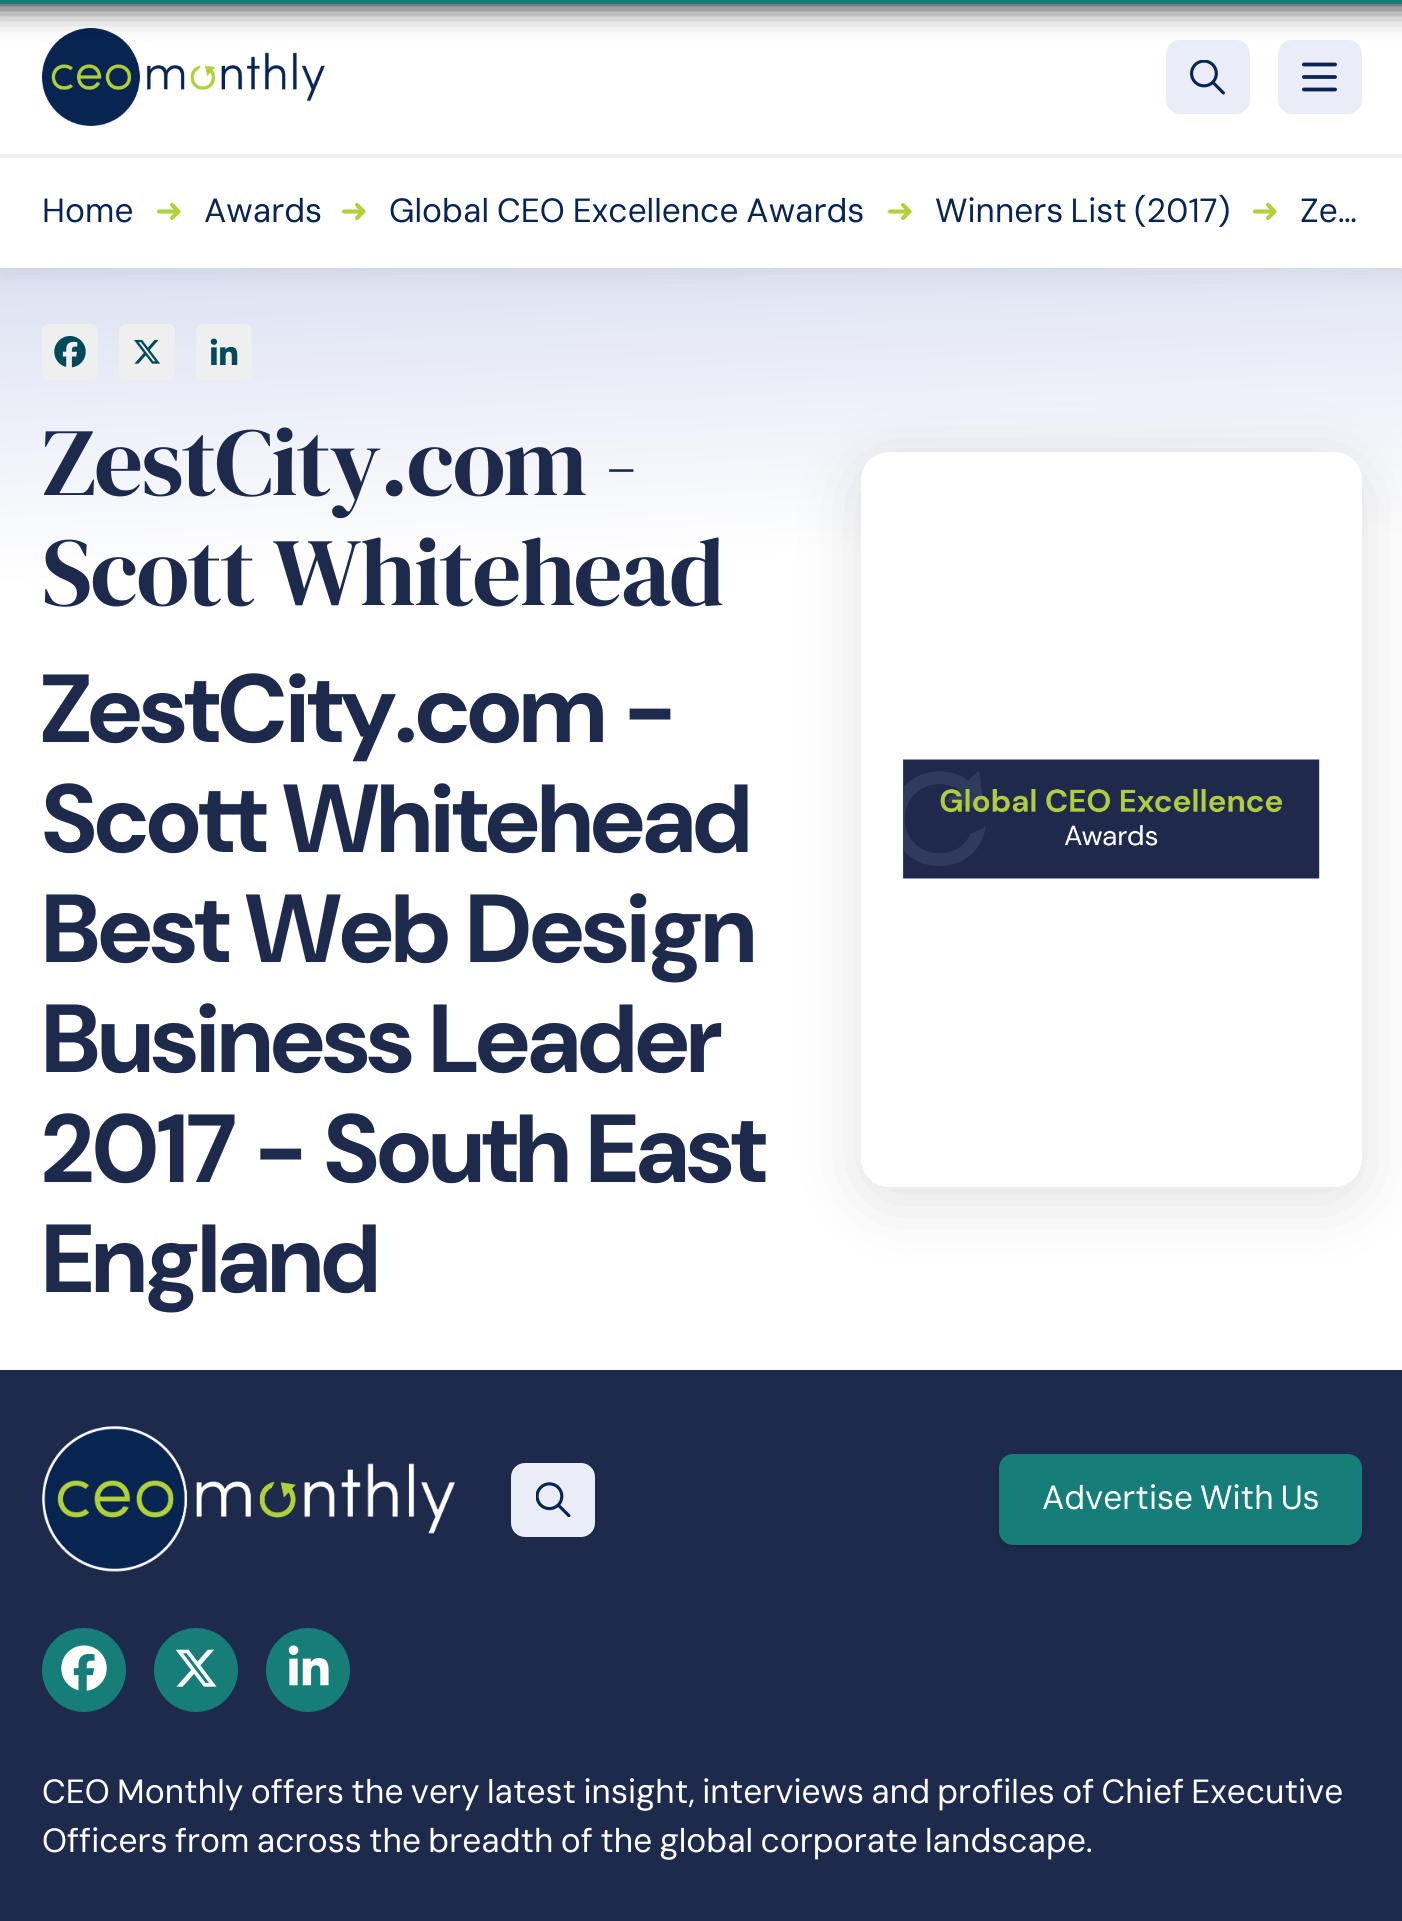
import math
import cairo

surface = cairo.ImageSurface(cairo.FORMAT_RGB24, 1402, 1921)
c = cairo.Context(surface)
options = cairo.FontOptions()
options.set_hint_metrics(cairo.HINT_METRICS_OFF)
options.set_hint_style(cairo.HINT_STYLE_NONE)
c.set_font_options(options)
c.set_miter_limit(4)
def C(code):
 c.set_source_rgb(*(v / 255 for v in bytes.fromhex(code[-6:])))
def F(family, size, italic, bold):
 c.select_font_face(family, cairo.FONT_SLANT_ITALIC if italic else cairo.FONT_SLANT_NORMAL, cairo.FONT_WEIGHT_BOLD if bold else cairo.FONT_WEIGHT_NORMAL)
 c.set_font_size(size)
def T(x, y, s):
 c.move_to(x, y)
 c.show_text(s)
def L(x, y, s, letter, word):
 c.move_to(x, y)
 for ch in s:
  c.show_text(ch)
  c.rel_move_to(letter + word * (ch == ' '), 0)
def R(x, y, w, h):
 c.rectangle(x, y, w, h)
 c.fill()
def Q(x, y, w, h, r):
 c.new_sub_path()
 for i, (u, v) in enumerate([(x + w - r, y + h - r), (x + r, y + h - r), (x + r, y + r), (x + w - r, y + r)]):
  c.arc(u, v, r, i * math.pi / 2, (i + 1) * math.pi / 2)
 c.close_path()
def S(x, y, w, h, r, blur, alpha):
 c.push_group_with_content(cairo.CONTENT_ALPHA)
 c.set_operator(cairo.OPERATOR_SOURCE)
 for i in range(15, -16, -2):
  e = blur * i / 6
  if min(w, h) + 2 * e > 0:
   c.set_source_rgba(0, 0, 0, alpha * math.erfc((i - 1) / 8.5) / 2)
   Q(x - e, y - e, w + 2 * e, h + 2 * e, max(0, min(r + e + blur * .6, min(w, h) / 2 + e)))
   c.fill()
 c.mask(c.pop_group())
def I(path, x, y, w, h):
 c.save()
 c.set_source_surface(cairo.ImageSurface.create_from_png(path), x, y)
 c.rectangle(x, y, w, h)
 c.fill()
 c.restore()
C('1d2a4c')
c.paint()
gradient = cairo.LinearGradient(682,115,717,1132)
gradient.add_color_stop_rgba(0,0.808,0.835,0.929,1)
gradient.add_color_stop_rgba(.44,1,1,1,1)
c.set_source(gradient)
R(0,268,1402,840)
C('000000')
S(0,0,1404,268,0,14,.1)
C('ffffff')
R(0,4,1402,264)
I('1.png',42,28,283,98)
C('eaedf7')
Q(1166,40,84,74,14)
c.fill()
Q(1278,40,84,74,14)
c.fill()
C('000000')
S(0,0,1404,4,0,15,1)
C('167d79')
R(0,0,1402,4)
C('efefef')
R(0,154,1402,4)
I('2.png',1190,60,35,35)
I('3.png',1302,62,35,30)
F('DM Sans',33.5,0,0)
C('082451')
T(42,222,'Home')
F('DejaVu Sans',33.5,0,0)
C('b1d13b')
T(155,222,'➜')
F('DM Sans',33.5,0,0)
C('082451')
T(204,222,'Awards')
F('DejaVu Sans',33.5,0,0)
C('b1d13b')
T(340,222,'➜')
F('DM Sans',33.5,0,0)
C('082451')
L(389,222,'Global CEO Excellence Awards',0,-1)
F('DejaVu Sans',33.5,0,0)
C('b1d13b')
T(886,222,'➜')
F('DM Sans',33.5,0,0)
C('082451')
L(935,222,'Winners List (2017)',0,-2)
F('DejaVu Sans',33.5,0,0)
C('b1d13b')
T(1251,222,'➜')
F('DM Sans',33.5,0,0)
C('082451')
L(1300,222,'Ze…',0,-2)
C('ffffff')
R(0,1108,1402,262)
C('efefef')
Q(42,324,56,56,7)
c.fill()
I('4.png',54,336,32,32)
Q(119,324,56,56,7)
c.fill()
I('5.png',134,339,26,25)
Q(196,324,56,56,7)
c.fill()
I('6.png',210,338,28,27)
F('DM Serif Display',96.5,0,0)
C('1d2a4c')
L(42,495,'ZestCity.com -',-1.75,0)
L(42,605,'Scott Whitehead',-1.75,0)
F('DM Sans',96.5,0,1)
L(42,742,'ZestCity.com -',-1.75,0)
L(42,852,'Scott Whitehead',-1.75,0)
L(42,962,'Best Web Design',-1.75,0)
L(42,1072,'Business Leader',-1.75,0)
L(42,1182,'2017 - South East',-1.75,0)
L(42,1292,'England',-1.75,0)
C('000000')
S(861,466,501,735,28,35,.12)
C('ffffff')
Q(861,452,501,735,28)
c.fill()
I('7.png',903,759,417,120)
I('8.png',42,1426,413,146)
C('eaedf7')
Q(511,1463,84,74,14)
c.fill()
I('9.png',536,1482,35,35)
C('000000')
S(999,1458,363,91,14,3.5,.16)
C('167d79')
Q(999,1454,363,91,14)
c.fill()
F('DM Sans',33.5,0,0)
C('ffffff')
L(1042,1509,'Advertise With Us',0,-2)
C('167d79')
c.new_path()
c.arc(84,1670,42,0,2 * math.pi)
c.fill()
I('10.png',61,1645,46,46)
c.arc(196,1670,42,0,2 * math.pi)
c.fill()
I('11.png',175,1649,42,38)
c.arc(308,1670,42,0,2 * math.pi)
c.fill()
I('12.png',288,1645,41,41)
C('ffffff')
L(42,1803,'CEO Monthly offers the very latest insight, interviews and profiles of Chief Executive',0,-1.7)
L(42,1852,'Officers from across the breadth of the global corporate landscape.',0,-1.75)
surface.write_to_png('o.png')
